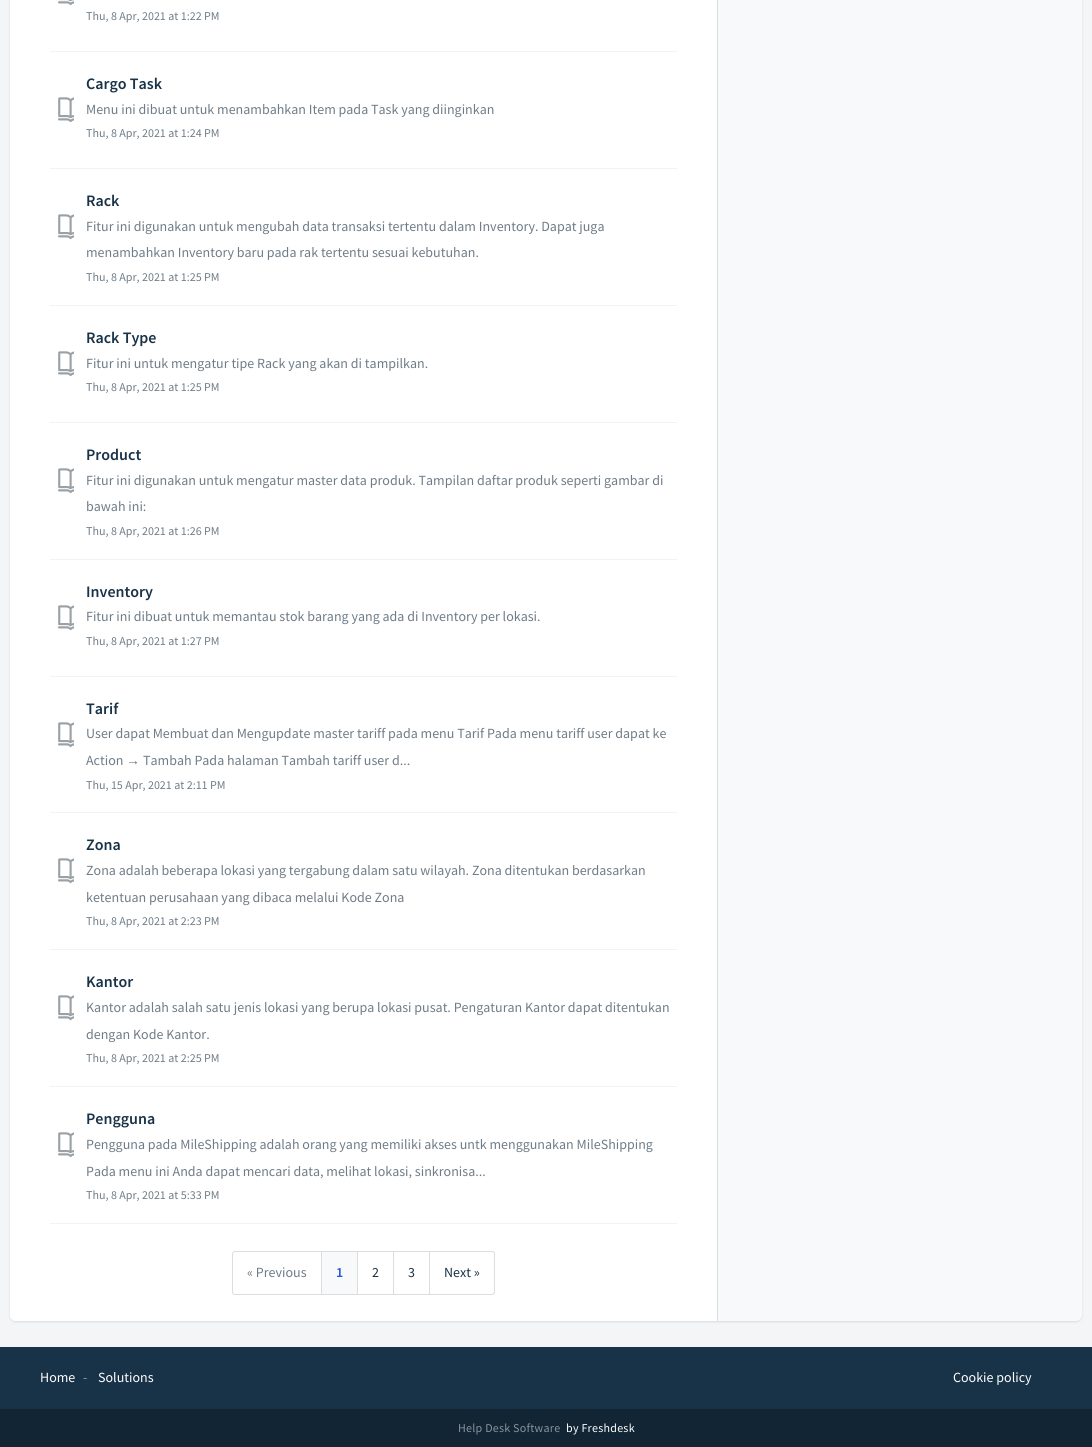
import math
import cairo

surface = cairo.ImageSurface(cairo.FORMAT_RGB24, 1092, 1447)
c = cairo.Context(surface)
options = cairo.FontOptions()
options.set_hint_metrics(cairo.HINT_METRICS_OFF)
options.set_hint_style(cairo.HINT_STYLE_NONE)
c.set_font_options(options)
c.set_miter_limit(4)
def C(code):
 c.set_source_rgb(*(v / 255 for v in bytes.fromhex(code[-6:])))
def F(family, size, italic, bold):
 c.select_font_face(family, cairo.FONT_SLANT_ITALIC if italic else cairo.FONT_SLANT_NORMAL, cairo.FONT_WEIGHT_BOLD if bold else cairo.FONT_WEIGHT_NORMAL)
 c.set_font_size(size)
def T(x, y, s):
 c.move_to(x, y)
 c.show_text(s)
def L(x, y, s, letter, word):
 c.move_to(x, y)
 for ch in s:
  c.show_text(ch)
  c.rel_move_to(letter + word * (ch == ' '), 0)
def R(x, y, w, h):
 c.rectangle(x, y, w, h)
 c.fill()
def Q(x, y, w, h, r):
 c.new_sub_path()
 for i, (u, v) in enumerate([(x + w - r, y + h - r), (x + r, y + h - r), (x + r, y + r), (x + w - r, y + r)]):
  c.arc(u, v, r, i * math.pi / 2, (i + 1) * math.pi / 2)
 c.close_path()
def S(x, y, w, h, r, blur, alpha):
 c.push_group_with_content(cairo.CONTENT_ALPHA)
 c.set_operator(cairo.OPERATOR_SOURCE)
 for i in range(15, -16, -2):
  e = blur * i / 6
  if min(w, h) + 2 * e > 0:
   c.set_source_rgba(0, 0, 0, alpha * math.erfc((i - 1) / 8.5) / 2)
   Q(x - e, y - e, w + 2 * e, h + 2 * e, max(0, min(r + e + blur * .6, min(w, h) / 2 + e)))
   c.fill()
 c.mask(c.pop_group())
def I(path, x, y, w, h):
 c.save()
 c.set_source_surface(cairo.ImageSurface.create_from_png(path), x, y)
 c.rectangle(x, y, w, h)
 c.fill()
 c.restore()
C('f3f5f7')
c.paint()
C('3f3f44')
S(10,-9,1072,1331,6,1,.15)
C('f8f9fa')
Q(10,-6,1072,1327,6)
c.fill()
C('ffffff')
c.new_path()
c.move_to(16,-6)
c.line_to(718,-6)
c.line_to(718,1321)
c.line_to(16,1321)
c.curve_to(12.5,1321,10,1318.5,10,1315)
c.line_to(10,0)
c.curve_to(10,-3.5,12.5,-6,16,-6)
c.close_path()
c.fill()
C('dadfe3')
R(717,0,1,1321)
C('f3f3f3')
R(50,1223,627,1)
I('1.png',58,0,16,6)
F('Source Sans Pro',12,0,0)
C('6f7c87')
T(86,20,'Thu, 8 Apr, 2021 at 1:22 PM')
C('f3f3f3')
R(50,51,627,1)
F('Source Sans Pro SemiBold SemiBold',16,0,0)
C('183247')
T(86,89,'Cargo Task')
I('2.png',58,97,16,26)
F('Source Sans Pro',14,0,0)
C('6f7c87')
T(86,114,'Menu ini dibuat untuk menambahkan Item pada Task yang diinginkan')
F('Source Sans Pro',12,0,0)
T(86,137,'Thu, 8 Apr, 2021 at 1:24 PM')
C('f3f3f3')
R(50,168,627,1)
F('Source Sans Pro SemiBold SemiBold',16,0,0)
C('183247')
T(86,206,'Rack')
I('2.png',58,214,16,26)
F('Source Sans Pro',14,0,0)
C('6f7c87')
T(86,231,'Fitur ini digunakan untuk mengubah data transaksi tertentu dalam Inventory. Dapat juga')
T(86,257,'menambahkan Inventory baru pada rak tertentu sesuai kebutuhan.')
F('Source Sans Pro',12,0,0)
T(86,281,'Thu, 8 Apr, 2021 at 1:25 PM')
C('f3f3f3')
R(50,305,627,1)
F('Source Sans Pro SemiBold SemiBold',16,0,0)
C('183247')
T(86,343,'Rack Type')
I('2.png',58,351,16,26)
F('Source Sans Pro',14,0,0)
C('6f7c87')
T(86,368,'Fitur ini untuk mengatur tipe Rack yang akan di tampilkan.')
F('Source Sans Pro',12,0,0)
T(86,391,'Thu, 8 Apr, 2021 at 1:25 PM')
C('f3f3f3')
R(50,422,627,1)
F('Source Sans Pro SemiBold SemiBold',16,0,0)
C('183247')
T(86,460,'Product')
I('2.png',58,468,16,26)
F('Source Sans Pro',14,0,0)
C('6f7c87')
T(86,485,'Fitur ini digunakan untuk mengatur master data produk. Tampilan daftar produk seperti gambar di')
T(86,511,'bawah ini:')
F('Source Sans Pro',12,0,0)
T(86,535,'Thu, 8 Apr, 2021 at 1:26 PM')
C('f3f3f3')
R(50,559,627,1)
F('Source Sans Pro SemiBold SemiBold',16,0,0)
C('183247')
T(86,597,'Inventory')
I('2.png',58,605,16,26)
F('Source Sans Pro',14,0,0)
C('6f7c87')
T(86,621,'Fitur ini dibuat untuk memantau stok barang yang ada di Inventory per lokasi.')
F('Source Sans Pro',12,0,0)
T(86,645,'Thu, 8 Apr, 2021 at 1:27 PM')
C('f3f3f3')
R(50,676,627,1)
F('Source Sans Pro SemiBold SemiBold',16,0,0)
C('183247')
T(86,714,'Tarif')
I('2.png',58,722,16,26)
F('Source Sans Pro',14,0,0)
C('6f7c87')
T(86,738,'User dapat Membuat dan Mengupdate master tariff pada menu Tarif Pada menu tariff user dapat ke')
T(86,765,'Action')
F('Liberation Sans',14,0,0)
T(126,765,'→')
F('Source Sans Pro',14,0,0)
T(143,765,'Tambah Pada halaman Tambah tariff user d...')
F('Source Sans Pro',12,0,0)
T(86,789,'Thu, 15 Apr, 2021 at 2:11 PM')
C('f3f3f3')
R(50,812,627,1)
F('Source Sans Pro SemiBold SemiBold',16,0,0)
C('183247')
T(86,850,'Zona')
I('2.png',58,858,16,26)
F('Source Sans Pro',14,0,0)
C('6f7c87')
T(86,875,'Zona adalah beberapa lokasi yang tergabung dalam satu wilayah. Zona ditentukan berdasarkan')
T(86,902,'ketentuan perusahaan yang dibaca melalui Kode Zona')
F('Source Sans Pro',12,0,0)
T(86,925,'Thu, 8 Apr, 2021 at 2:23 PM')
C('f3f3f3')
R(50,949,627,1)
F('Source Sans Pro SemiBold SemiBold',16,0,0)
C('183247')
T(86,987,'Kantor')
I('2.png',58,995,16,26)
F('Source Sans Pro',14,0,0)
C('6f7c87')
T(86,1012,'Kantor adalah salah satu jenis lokasi yang berupa lokasi pusat. Pengaturan Kantor dapat ditentukan')
T(86,1039,'dengan Kode Kantor.')
F('Source Sans Pro',12,0,0)
T(86,1062,'Thu, 8 Apr, 2021 at 2:25 PM')
C('f3f3f3')
R(50,1086,627,1)
F('Source Sans Pro SemiBold SemiBold',16,0,0)
C('183247')
T(86,1124,'Pengguna')
I('2.png',58,1132,16,26)
F('Source Sans Pro',14,0,0)
C('6f7c87')
T(86,1149,'Pengguna pada MileShipping adalah orang yang memiliki akses untk menggunakan MileShipping')
T(86,1176,'Pada menu ini Anda dapat mencari data, melihat lokasi, sinkronisa...')
F('Source Sans Pro',12,0,0)
T(86,1199,'Thu, 8 Apr, 2021 at 5:33 PM')
c.new_path()
c.move_to(235,1251.5)
c.line_to(321.5,1251.5)
c.line_to(321.5,1294.5)
c.line_to(235,1294.5)
c.curve_to(233.5,1294.5,232.5,1293.5,232.5,1292)
c.line_to(232.5,1254)
c.curve_to(232.5,1252.5,233.5,1251.5,235,1251.5)
c.close_path()
C('dddddd')
c.set_line_width(1)
c.stroke()
F('Source Sans Pro',14,0,0)
C('6f7c87')
T(247,1277,'« Previous')
C('f8f9fa')
R(322,1252,35,42)
C('dddddd')
R(322,1251,108,1)
R(357,1251,1,44)
R(322,1294,36,1)
F('Source Sans Pro SemiBold SemiBold',14,0,0)
C('2753d7')
T(336,1277,'1')
C('dddddd')
R(393,1251,1,44)
R(358,1294,36,1)
F('Source Sans Pro',14,0,0)
C('183247')
T(372,1277,'2')
C('dddddd')
R(429,1251,1,44)
R(394,1294,36,1)
C('183247')
T(408,1277,'3')
C('dddddd')
c.set_fill_rule(cairo.FILL_RULE_EVEN_ODD)
c.new_path()
c.move_to(430,1251)
c.line_to(492,1251)
c.curve_to(494,1251,495,1252,495,1254)
c.line_to(495,1292)
c.curve_to(495,1294,494,1295,492,1295)
c.line_to(430,1295)
c.close_path()
c.move_to(430,1252)
c.line_to(492,1252)
c.curve_to(493,1252,494,1253,494,1254)
c.line_to(494,1292)
c.curve_to(494,1293,493,1294,492,1294)
c.line_to(430,1294)
c.close_path()
c.fill()
C('183247')
T(444,1277,'Next »')
R(0,1347,1092,62)
C('ffffff')
T(40,1382,'Home')
C('8c99a3')
T(83,1382,'-')
C('ffffff')
T(98,1382,'Solutions')
T(953,1382,'Cookie policy')
C('122534')
R(0,1409,1092,38)
F('Source Sans Pro',12,0,0)
C('89929a')
L(458,1432,'Help Desk Software',.25,0)
C('ffffff')
L(566,1432,'by Freshdesk',.25,0)
surface.write_to_png('o.png')
